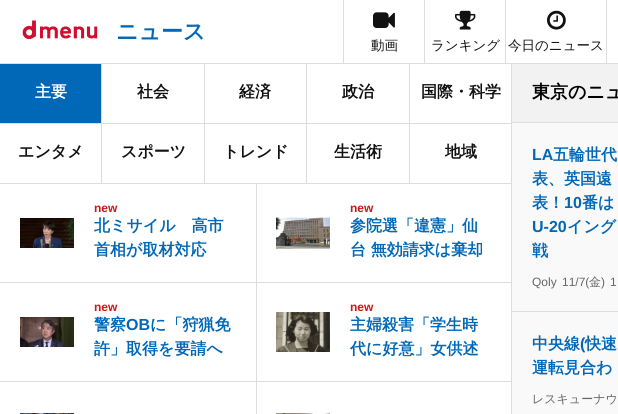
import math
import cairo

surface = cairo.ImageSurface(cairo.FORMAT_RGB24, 618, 414)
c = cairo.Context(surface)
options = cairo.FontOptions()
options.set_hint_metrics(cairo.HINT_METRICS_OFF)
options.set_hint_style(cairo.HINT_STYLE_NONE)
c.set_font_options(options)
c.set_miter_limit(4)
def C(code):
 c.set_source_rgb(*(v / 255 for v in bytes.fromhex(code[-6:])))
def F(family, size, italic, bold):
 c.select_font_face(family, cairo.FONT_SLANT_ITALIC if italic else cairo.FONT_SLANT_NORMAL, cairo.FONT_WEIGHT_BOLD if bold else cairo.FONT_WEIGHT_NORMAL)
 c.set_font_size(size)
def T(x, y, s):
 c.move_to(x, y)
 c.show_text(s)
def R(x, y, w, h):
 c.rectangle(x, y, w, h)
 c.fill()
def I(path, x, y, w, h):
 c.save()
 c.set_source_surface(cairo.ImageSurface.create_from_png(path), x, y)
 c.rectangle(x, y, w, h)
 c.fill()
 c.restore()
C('ffffff')
c.paint()
C('dddddd')
R(0,63,618,1)
I('1.png',22,20,76,19)
F('WenQuanYi Zen Hei',22,0,1)
C('0068b7')
T(116,39,'ニュース')
C('dddddd')
R(343,0,1,63)
I('2.png',373,12,22,16)
F('WenQuanYi Zen Hei Medium',13.5,0,0)
C('111111')
T(371,50,'動画')
C('dddddd')
R(424,0,1,63)
I('3.png',455,10,21,20)
C('111111')
T(431,50,'ランキング')
C('dddddd')
R(505,0,1,63)
I('4.png',547,10,19,20)
C('111111')
T(508,50,'今日のニュース')
C('dddddd')
R(606,0,1,63)
C('0068b7')
R(0,64,101,59)
C('dddddd')
R(101,64,1,120)
R(0,123,102,1)
F('WenQuanYi Zen Hei',16,0,1)
C('ffffff')
T(35,97,'主要')
C('dddddd')
R(204,64,1,120)
R(102,123,103,1)
C('111111')
T(137,97,'社会')
C('dddddd')
R(306,64,1,120)
R(205,123,102,1)
C('111111')
T(239,97,'経済')
C('dddddd')
R(409,64,1,120)
R(307,123,205,1)
C('111111')
T(342,97,'政治')
T(421,97,'国際・科学')
C('dddddd')
R(0,183,512,1)
C('111111')
T(18,157,'エンタメ')
T(121,157,'スポーツ')
T(223,157,'トレンド')
T(334,157,'生活術')
T(445,157,'地域')
C('dddddd')
R(0,282,512,1)
I('5.png',20,218,54,30)
F('Liberation Sans',12,0,1)
C('cc1717')
T(94,212,'new')
F('WenQuanYi Zen Hei',16,0,1)
C('0068b7')
T(94,231,'北ミサイル　高市')
T(94,255,'首相が取材対応')
C('dddddd')
R(0,381,512,1)
R(256,184,1,230)
I('6.png',276,217,54,32)
F('Liberation Sans',12,0,1)
C('cc1717')
T(350,212,'new')
F('WenQuanYi Zen Hei',16,0,1)
C('0068b7')
T(350,231,'参院選「違憲」仙')
T(350,255,'台 無効請求は棄却')
I('7.png',20,317,54,30)
F('Liberation Sans',12,0,1)
C('cc1717')
T(94,311,'new')
F('WenQuanYi Zen Hei',16,0,1)
C('0068b7')
T(94,330,'警察')
F('Liberation Sans',16,0,1)
T(126,330,'OB')
F('WenQuanYi Zen Hei',16,0,1)
T(150,330,'に「狩猟免')
T(94,354,'許」取得を要請へ')
I('8.png',276,312,54,40)
F('Liberation Sans',12,0,1)
C('cc1717')
T(350,311,'new')
F('WenQuanYi Zen Hei',16,0,1)
C('0068b7')
T(350,330,'主婦殺害「学生時')
T(350,354,'代に好意」女供述')
I('9.png',20,413,54,1)
I('10.png',276,413,54,1)
C('dddddd')
R(511,64,1,350)
C('f2f2f2')
R(512,64,106,58)
C('dddddd')
R(512,122,106,1)
F('WenQuanYi Zen Hei',18,0,1)
C('000000')
T(532,98,'東京のニュ')
C('f9f9f9')
R(512,123,106,291)
C('dddddd')
R(512,311,106,1)
F('Liberation Sans',16,0,1)
C('0068b7')
T(532,160,'LA')
F('WenQuanYi Zen Hei',16,0,1)
T(553,160,'五輪世代')
T(532,184,'表、英国遠')
T(532,208,'表！')
F('Liberation Sans',16,0,1)
T(564,208,'10')
F('WenQuanYi Zen Hei',16,0,1)
T(582,208,'番は')
F('Liberation Sans',16,0,1)
T(532,232,'U-20')
F('WenQuanYi Zen Hei',16,0,1)
T(567,232,'イング')
T(532,256,'戦')
F('Liberation Sans',12,0,0)
C('666666')
T(532,286,'Qoly')
T(562,286,'11/7(')
F('WenQuanYi Zen Hei Medium',12,0,0)
T(589,286,'金')
F('Liberation Sans',12,0,0)
T(601,286,')')
T(610,286,'1')
F('WenQuanYi Zen Hei',16,0,1)
C('0068b7')
T(532,349,'中央線')
F('Liberation Sans',16,0,1)
T(580,349,'(')
F('WenQuanYi Zen Hei',16,0,1)
T(585,349,'快速')
T(532,373,'運転見合わ')
F('WenQuanYi Zen Hei Medium',12,0,0)
C('666666')
T(532,403,'レスキューナウ')
surface.write_to_png('o.png')
